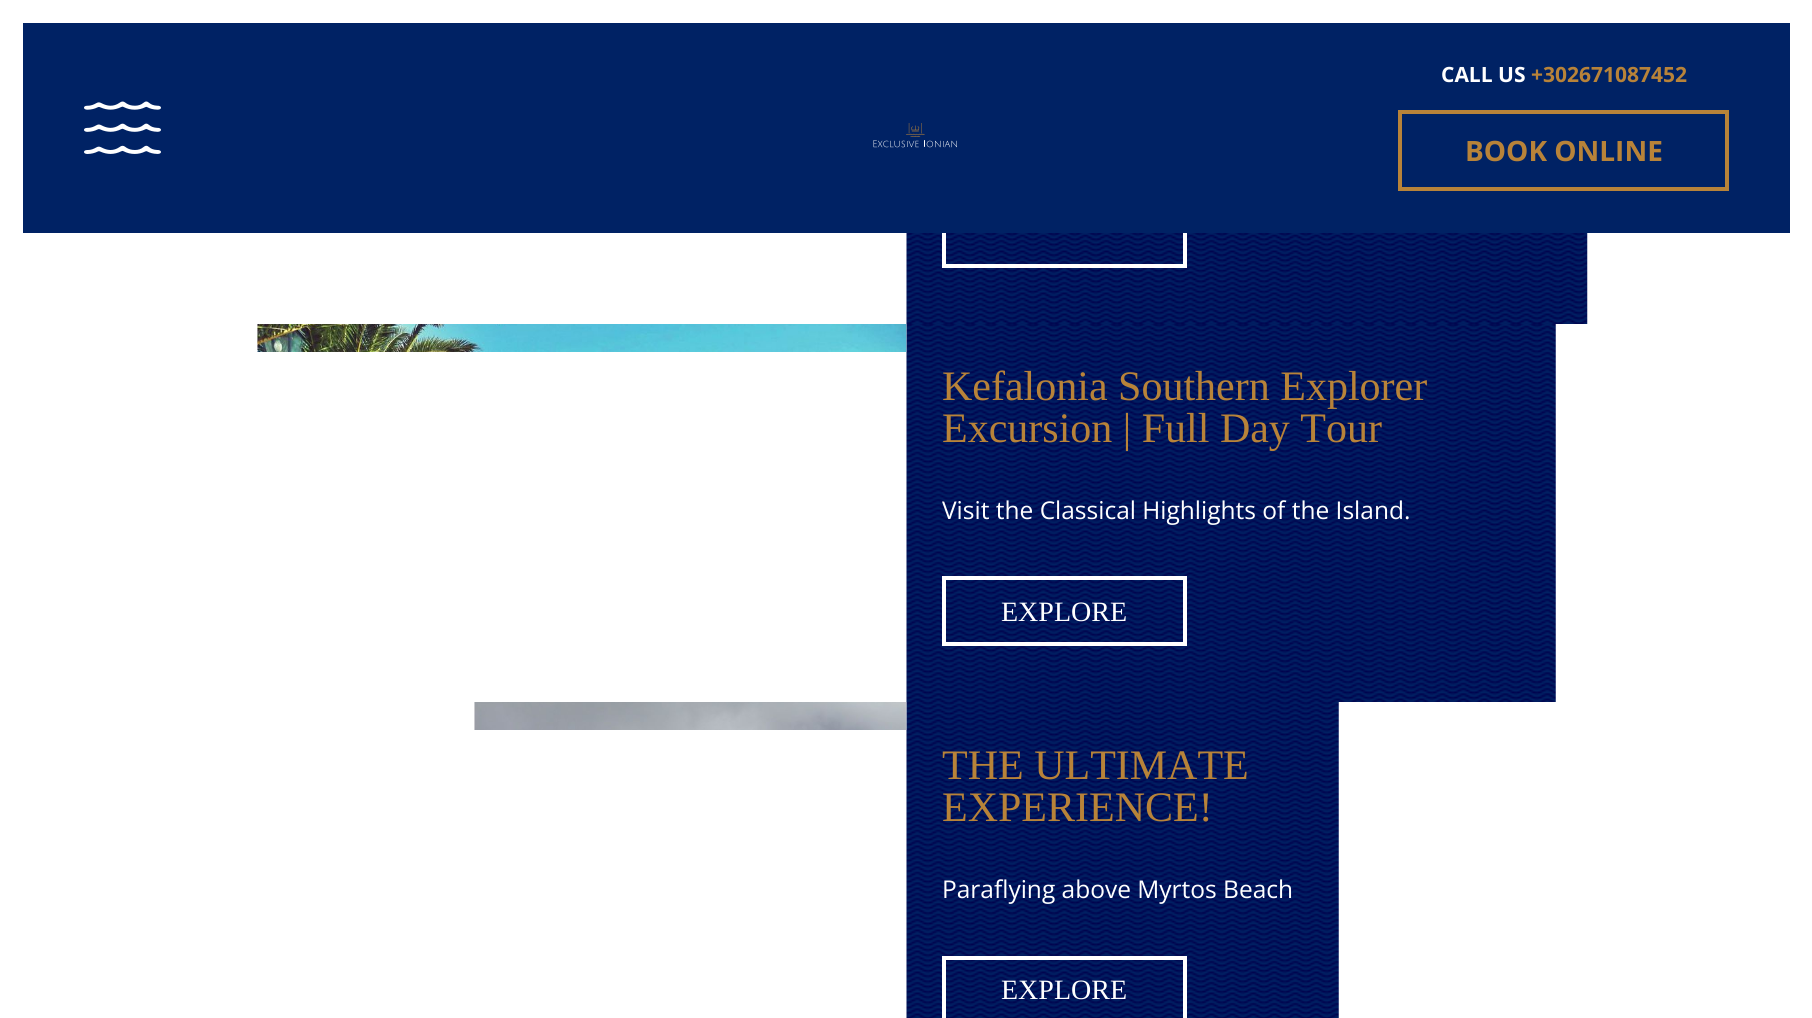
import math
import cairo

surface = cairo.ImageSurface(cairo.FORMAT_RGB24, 1812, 1018)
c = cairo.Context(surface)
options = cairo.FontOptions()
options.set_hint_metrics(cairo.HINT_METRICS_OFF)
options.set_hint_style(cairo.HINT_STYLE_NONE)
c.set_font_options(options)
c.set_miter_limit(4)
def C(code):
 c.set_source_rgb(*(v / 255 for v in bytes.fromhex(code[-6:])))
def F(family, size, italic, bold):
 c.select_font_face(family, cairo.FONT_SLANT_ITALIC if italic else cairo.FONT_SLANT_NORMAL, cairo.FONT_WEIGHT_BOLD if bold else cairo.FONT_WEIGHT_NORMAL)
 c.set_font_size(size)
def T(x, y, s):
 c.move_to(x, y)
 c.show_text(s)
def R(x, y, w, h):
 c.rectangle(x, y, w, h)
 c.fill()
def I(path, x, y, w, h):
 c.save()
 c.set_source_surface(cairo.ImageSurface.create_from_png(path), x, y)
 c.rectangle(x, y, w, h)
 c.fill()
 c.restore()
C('ffffff')
c.paint()
I('3.png',906,233,682,91)
c.rectangle(944,200,241,66)
C('ffffff')
c.set_line_width(4)
c.stroke()
C('002264')
R(23,23,1767,210)
I('1.png',84,101,77,53)
I('2.png',873,123,84,25)
F('Open Sans',21,0,1)
C('ffffff')
T(1441,82,'CALL US')
C('b88339')
T(1531,82,'+302671087452')
c.rectangle(1400,112,327,77)
c.stroke()
F('Open Sans',28,0,1)
T(1465,161,'BOOK ONLINE')
I('5.png',906,324,650,378)
I('4.png',257,324,650,28)
F('Liberation Serif',42,0,0)
T(942,400,'Kefalonia Southern Explorer')
T(942,442,'Excursion | Full Day Tour')
F('Open Sans',24.5,0,0)
C('ffffff')
T(942,519,'Visit the Classical Highlights of the Island.')
c.rectangle(944,578,241,66)
c.stroke()
F('Liberation Serif',28,0,0)
T(1001,621,'EXPLORE')
I('7.png',906,702,433,316)
I('6.png',474,702,433,28)
F('Liberation Serif',42,0,0)
C('b88339')
T(942,779,'THE ULTIMATE')
T(942,821,'EXPERIENCE!')
F('Open Sans',24.5,0,0)
C('ffffff')
T(942,898,'Paraflying above Myrtos Beach')
c.rectangle(944,958,241,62)
c.stroke()
F('Liberation Serif',28,0,0)
T(1001,999,'EXPLORE')
surface.write_to_png('o.png')
